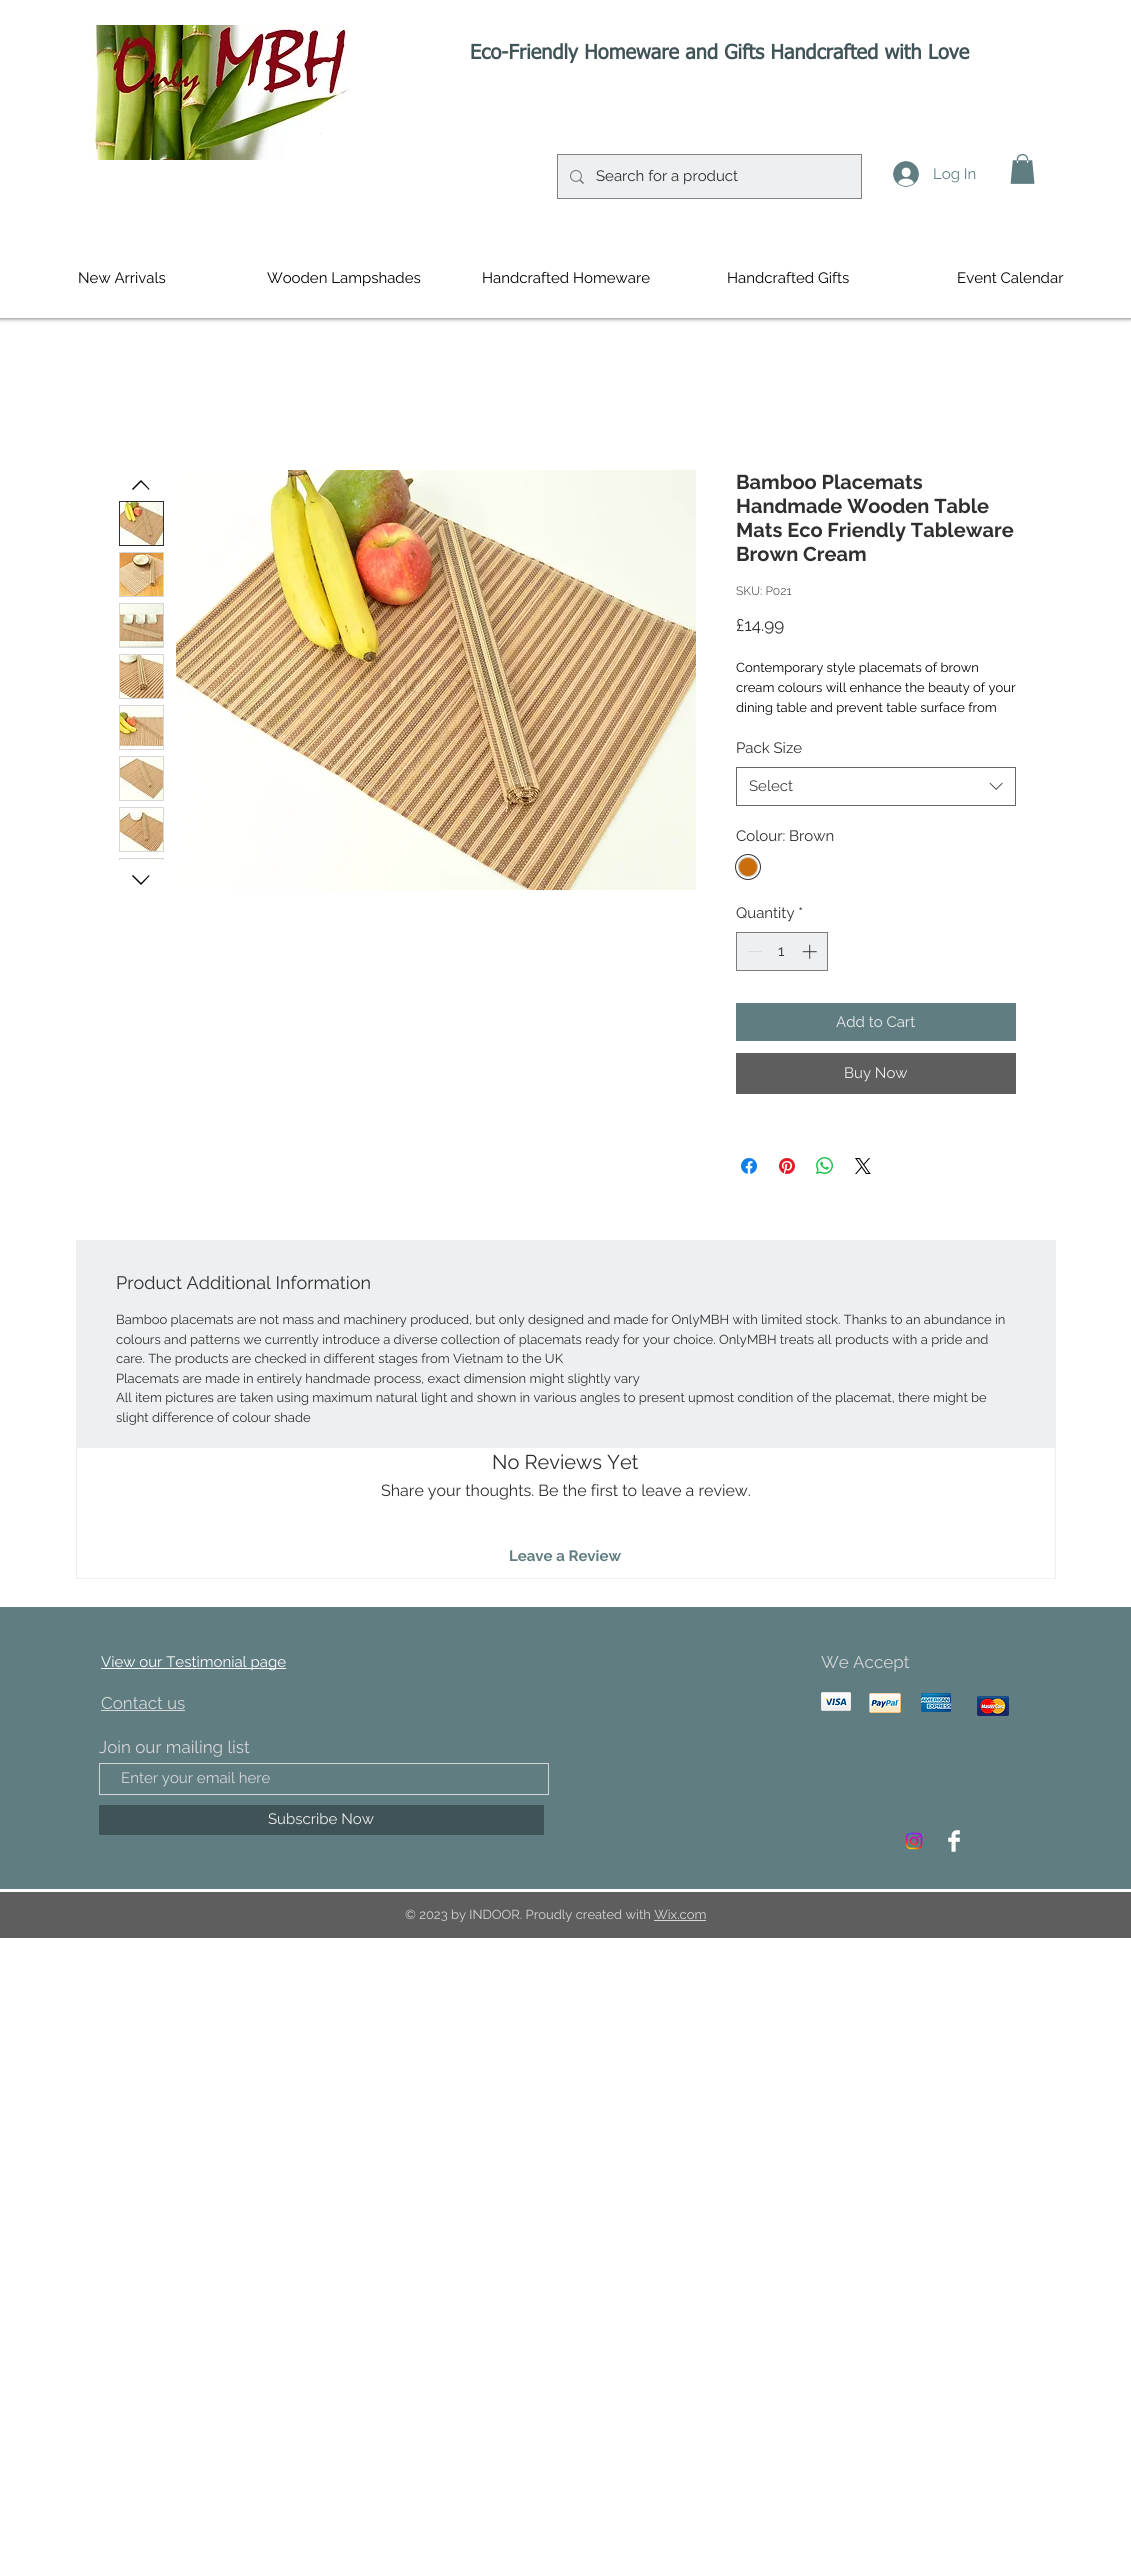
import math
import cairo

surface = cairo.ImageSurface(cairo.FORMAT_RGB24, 1131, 2561)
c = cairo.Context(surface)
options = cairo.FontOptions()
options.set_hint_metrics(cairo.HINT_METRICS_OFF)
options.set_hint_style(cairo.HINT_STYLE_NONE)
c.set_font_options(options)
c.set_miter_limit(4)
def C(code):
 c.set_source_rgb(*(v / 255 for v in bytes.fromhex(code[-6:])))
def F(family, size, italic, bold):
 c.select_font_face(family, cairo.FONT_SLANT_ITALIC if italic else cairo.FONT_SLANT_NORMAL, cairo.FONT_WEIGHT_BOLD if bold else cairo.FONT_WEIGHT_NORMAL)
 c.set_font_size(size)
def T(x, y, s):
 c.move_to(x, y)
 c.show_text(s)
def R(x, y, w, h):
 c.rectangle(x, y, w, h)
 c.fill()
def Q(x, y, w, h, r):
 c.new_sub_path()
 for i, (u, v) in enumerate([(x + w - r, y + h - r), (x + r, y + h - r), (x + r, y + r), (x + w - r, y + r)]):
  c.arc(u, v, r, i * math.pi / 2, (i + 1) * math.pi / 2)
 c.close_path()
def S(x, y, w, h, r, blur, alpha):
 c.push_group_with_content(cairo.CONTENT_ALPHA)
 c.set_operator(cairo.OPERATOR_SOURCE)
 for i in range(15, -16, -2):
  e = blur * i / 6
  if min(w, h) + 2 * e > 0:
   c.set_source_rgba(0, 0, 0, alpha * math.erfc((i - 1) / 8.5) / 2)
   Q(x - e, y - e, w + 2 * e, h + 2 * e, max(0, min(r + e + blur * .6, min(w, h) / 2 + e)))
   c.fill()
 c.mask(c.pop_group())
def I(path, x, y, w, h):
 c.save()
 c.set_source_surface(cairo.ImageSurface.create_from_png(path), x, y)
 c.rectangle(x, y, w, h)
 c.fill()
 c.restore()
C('ffffff')
c.paint()
c.save()
c.rectangle(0,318,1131,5)
c.clip()
C('000000')
S(0,0,1131,318,0,2.5,.7)
c.restore()
I('1.png',76,25,280,135)
F('tahoma',20,0,1)
C('405357')
T(470,59,'Eco-Friendly Homeware and Gifts Handcrafted with Love')
c.rectangle(557.5,154.5,304,44)
C('828282')
c.set_line_width(1)
c.stroke()
C('edeff0')
R(558,155,303,43)
I('2.png',570,170,14,14)
F('Raleway',15,0,0)
C('2f2f2f')
T(596,181,'Search for a product')
I('3.png',893,161,26,26)
C('607d82')
T(933,179,'Log In')
I('4.png',1010,154,25,30)
C('000000')
T(78,283,'New Arrivals')
T(267,283,'Wooden Lampshades')
T(482,283,'Handcrafted Homeware')
T(727,283,'Handcrafted Gifts')
T(957,283,'Event Calendar')
c.set_fill_rule(cairo.FILL_RULE_EVEN_ODD)
c.new_path()
c.move_to(141,480)
c.line_to(149.5,489)
c.line_to(149,490)
c.line_to(141,482)
c.line_to(133,490)
c.line_to(132,489)
c.close_path()
c.fill()
c.rectangle(119.5,501.5,44,44)
C('2f2f2f')
c.stroke()
I('5.png',120,502,43,43)
c.rectangle(119.5,552.5,44,44)
C('d6d6d6')
c.stroke()
I('6.png',120,553,43,43)
c.rectangle(119.5,603.5,44,44)
c.stroke()
I('7.png',120,604,43,43)
c.rectangle(119.5,654.5,44,44)
c.stroke()
I('8.png',120,655,43,43)
c.rectangle(119.5,705.5,44,44)
c.stroke()
I('9.png',120,706,43,41)
c.rectangle(119.5,756.5,44,44)
c.stroke()
I('10.png',120,757,43,43)
c.rectangle(119.5,807.5,44,44)
c.stroke()
I('11.png',120,808,43,43)
C('000000')
c.new_path()
c.move_to(149,875)
c.line_to(149.5,876)
c.line_to(141,885)
c.line_to(132,876)
c.line_to(133,875)
c.line_to(141,883)
c.close_path()
c.fill()
c.save()
c.set_fill_rule(cairo.FILL_RULE_WINDING)
c.rectangle(115,497,53,363)
c.clip()
c.rectangle(119.5,858.5,44,44)
C('d6d6d6')
c.stroke()
c.restore()
I('12.png',120,859,43,1)
I('13.png',176,470,520,420)
F('Raleway',20,0,1)
C('2f2f2f')
T(736,489,'Bamboo Placemats')
T(736,513,'Handmade Wooden Table')
T(736,537,'Mats Eco Friendly Tableware')
T(736,561,'Brown Cream')
F('Raleway',12,0,0)
C('5e5e5e')
T(736,595,'SKU: P021')
F('Raleway',17,0,0)
C('2f2f2f')
T(736,631,'£14.99')
F('Raleway',13,0,0)
C('000000')
T(736,672,'Contemporary style placemats of brown')
T(736,692,'cream colours will enhance the beauty of your')
T(736,712,'dining table and prevent table surface from')
F('Raleway',15,0,0)
C('2f2f2f')
T(736,753,'Pack Size')
c.rectangle(736.5,767.5,279,38)
C('666666')
c.stroke()
C('444444')
T(749,791,'Select')
I('14.png',989,782,14,8)
C('2f2f2f')
T(736,841,'Colour: Brown')
c.new_path()
c.arc(748,867,12.5,0,2 * math.pi)
c.stroke()
C('cc6d0d')
c.arc(748,867,9.5,0,2 * math.pi)
c.fill_preserve()
C('c9c9c9')
c.stroke()
C('2f2f2f')
T(736,918,'Quantity *')
C('edeff0')
c.rectangle(736.5,932.5,91,38)
c.fill_preserve()
C('7b7c7c')
c.stroke()
C('dadbdc')
R(748,951,14,1)
C('2f2f2f')
T(778,956,'1')
I('15.png',802,944,15,15)
C('607d82')
R(736,1003,280,38)
C('edeff0')
T(836,1027,'Add to Cart')
C('5e5e5e')
R(736,1053,280,41)
C('edeff0')
T(844,1078,'Buy Now')
I('16.png',741,1158,16,16)
I('17.png',779,1158,16,16)
I('18.png',816,1157,17,17)
I('19.png',855,1158,16,16)
R(76,1240,980,207)
F('Raleway',18,0,0)
C('2f2f2f')
T(116,1289,'Product Additional Information')
F('Raleway',13,0,0)
T(116,1324,'Bamboo placemats are not mass and machinery produced, but only designed and made for OnlyMBH with limited stock. Thanks to an abundance in')
T(116,1344,'colours and patterns we currently introduce a diverse collection of placemats ready for your choice. OnlyMBH treats all products with a pride and')
T(116,1363,'care. The products are checked in different stages from Vietnam to the UK')
T(116,1383,'Placemats are made in entirely handmade process, exact dimension might slightly vary')
T(116,1402,'All item pictures are taken using maximum natural light and shown in various angles to present upmost condition of the placemat, there might be')
T(116,1422,'slight difference of colour shade')
c.rectangle(76.5,1447.5,979,131)
C('edeff0')
c.stroke()
F('Raleway',20,0,0)
C('2f2f2f')
T(492,1469,'No Reviews Yet')
F('Raleway',16,0,0)
T(381,1496,'Share your thoughts. Be the first to leave a review.')
F('Raleway',15,0,1)
C('607d82')
T(509,1561,'Leave a Review')
R(0,1607,1131,282)
C('ffffff')
R(101,1668,185,1)
F('Raleway',15,0,0)
T(101,1667,'View our Testimonial page')
F('Raleway',17,0,0)
C('d6d6d6')
T(821,1668,'We Accept')
T(101,1709,'Contact us')
R(101,1710,84,1)
I('20.png',821,1692,30,19)
I('21.png',869,1693,32,20)
I('22.png',921,1693,30,19)
I('23.png',977,1696,32,20)
T(99,1753,'Join our mailing list')
c.rectangle(99.5,1763.5,449,31)
c.stroke()
F('Raleway',15,0,0)
T(121,1783,'Enter your email here')
C('405357')
R(99,1805,445,30)
C('edeff0')
T(268,1824,'Subscribe Now')
I('24.png',905,1832,18,18)
I('25.png',948,1830,12,22)
C('5e5e5e')
R(0,1892,1131,46)
F('Raleway',13,0,0)
C('d6d6d6')
T(405,1919,'© 2023 by INDOOR. Proudly created with Wix.com')
R(654,1920,52,1)
surface.write_to_png('o.png')
